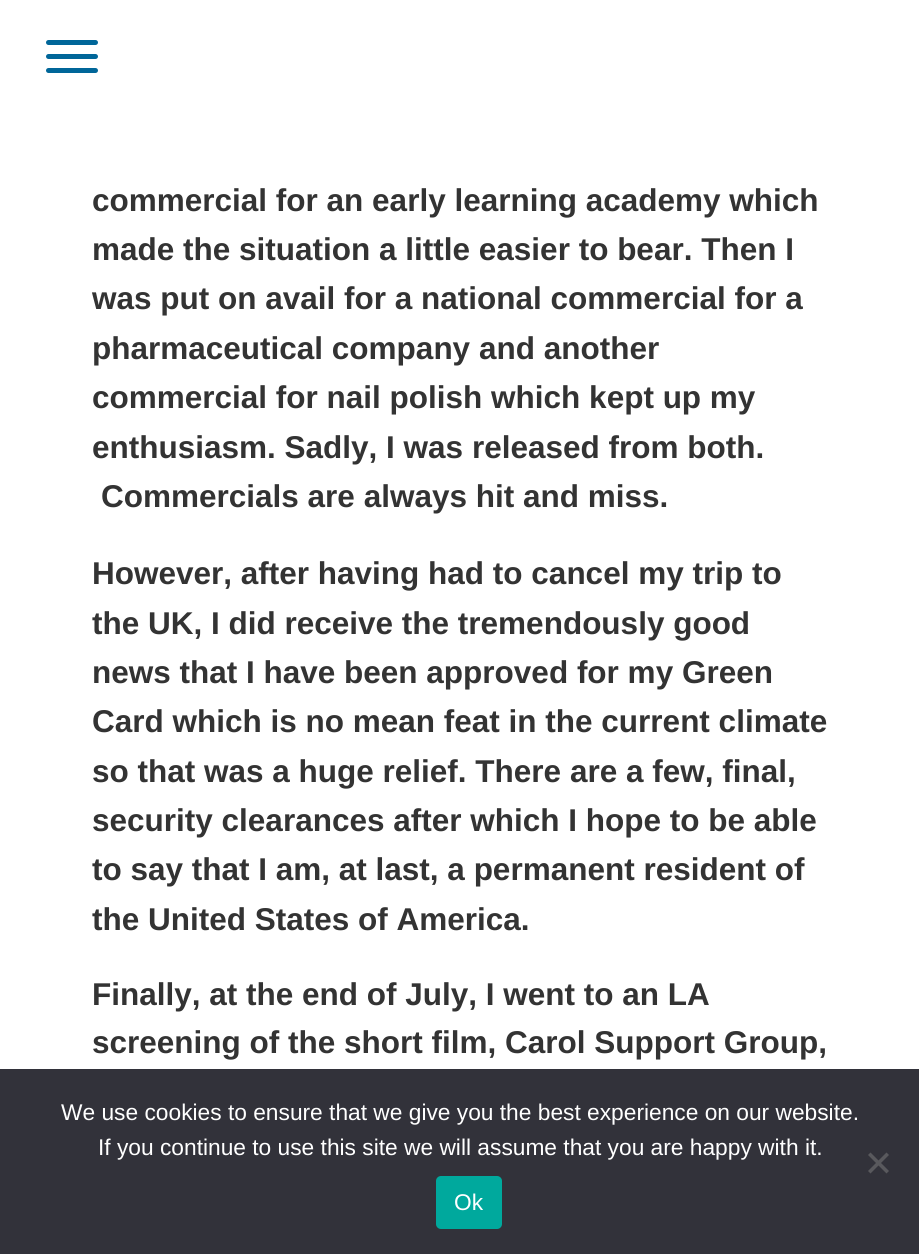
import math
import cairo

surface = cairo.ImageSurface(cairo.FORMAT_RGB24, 919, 1254)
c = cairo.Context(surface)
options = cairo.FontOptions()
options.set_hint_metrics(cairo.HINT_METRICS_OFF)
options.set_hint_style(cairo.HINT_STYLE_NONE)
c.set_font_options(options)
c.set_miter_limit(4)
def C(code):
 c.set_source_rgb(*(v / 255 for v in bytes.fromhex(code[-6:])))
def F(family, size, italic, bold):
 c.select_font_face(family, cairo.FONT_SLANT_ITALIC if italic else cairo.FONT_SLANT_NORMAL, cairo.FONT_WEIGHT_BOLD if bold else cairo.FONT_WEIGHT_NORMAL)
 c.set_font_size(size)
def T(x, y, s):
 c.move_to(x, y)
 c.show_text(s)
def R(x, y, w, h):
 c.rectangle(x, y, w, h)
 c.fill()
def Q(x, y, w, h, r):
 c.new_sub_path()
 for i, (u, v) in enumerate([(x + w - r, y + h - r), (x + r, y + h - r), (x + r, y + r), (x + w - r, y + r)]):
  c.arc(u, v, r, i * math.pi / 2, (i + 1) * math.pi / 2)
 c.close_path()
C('ffffff')
c.paint()
C('006699')
Q(46,54,52,5,2.5)
c.fill()
Q(46,40,52,5,2.5)
c.fill()
Q(46,68,52,5,2.5)
c.fill()
F('Liberation Sans',31.5,0,1)
C('333333')
T(92,211,'commercial for an early learning academy which')
T(92,260,'made the situation a little easier to bear. Then I')
T(92,309,'was put on avail for a national commercial for a')
T(92,359,'pharmaceutical company and another')
T(92,408,'commercial for nail polish which kept up my')
T(92,458,'enthusiasm. Sadly, I was released from both.')
T(101,507,'Commercials are always hit and miss.')
T(92,584,'However, after having had to cancel my trip to')
T(92,634,'the UK, I did receive the tremendously good')
T(92,683,'news that I have been approved for my Green')
T(92,732,'Card which is no mean feat in the current climate')
T(92,782,'so that was a huge relief. There are a few, final,')
T(92,831,'security clearances after which I hope to be able')
T(92,880,'to say that I am, at last, a permanent resident of')
T(92,930,'the United States of America.')
T(92,1005,'Finally, at the end of July, I went to an LA')
T(92,1053,'screening of the short film, Carol Support Group,')
C('32323a')
R(0,1069,919,185)
F('Liberation Sans',22.75,0,0)
C('ffffff')
T(61,1120,'We use cookies to ensure that we give you the best experience on our website.')
T(98,1155,'If you continue to use this site we will assume that you are happy with it.')
C('59595d')
c.new_path()
c.move_to(886.5,1152.5)
c.line_to(889,1155)
c.line_to(870.5,1173.5)
c.line_to(868,1171)
c.close_path()
c.fill()
c.new_path()
c.move_to(868,1155)
c.line_to(870.5,1152.5)
c.line_to(889,1171)
c.line_to(886.5,1173.5)
c.close_path()
c.fill()
C('00a99d')
Q(436,1176,66,53,5)
c.fill()
C('ffffff')
T(454,1210,'Ok')
surface.write_to_png('o.png')
